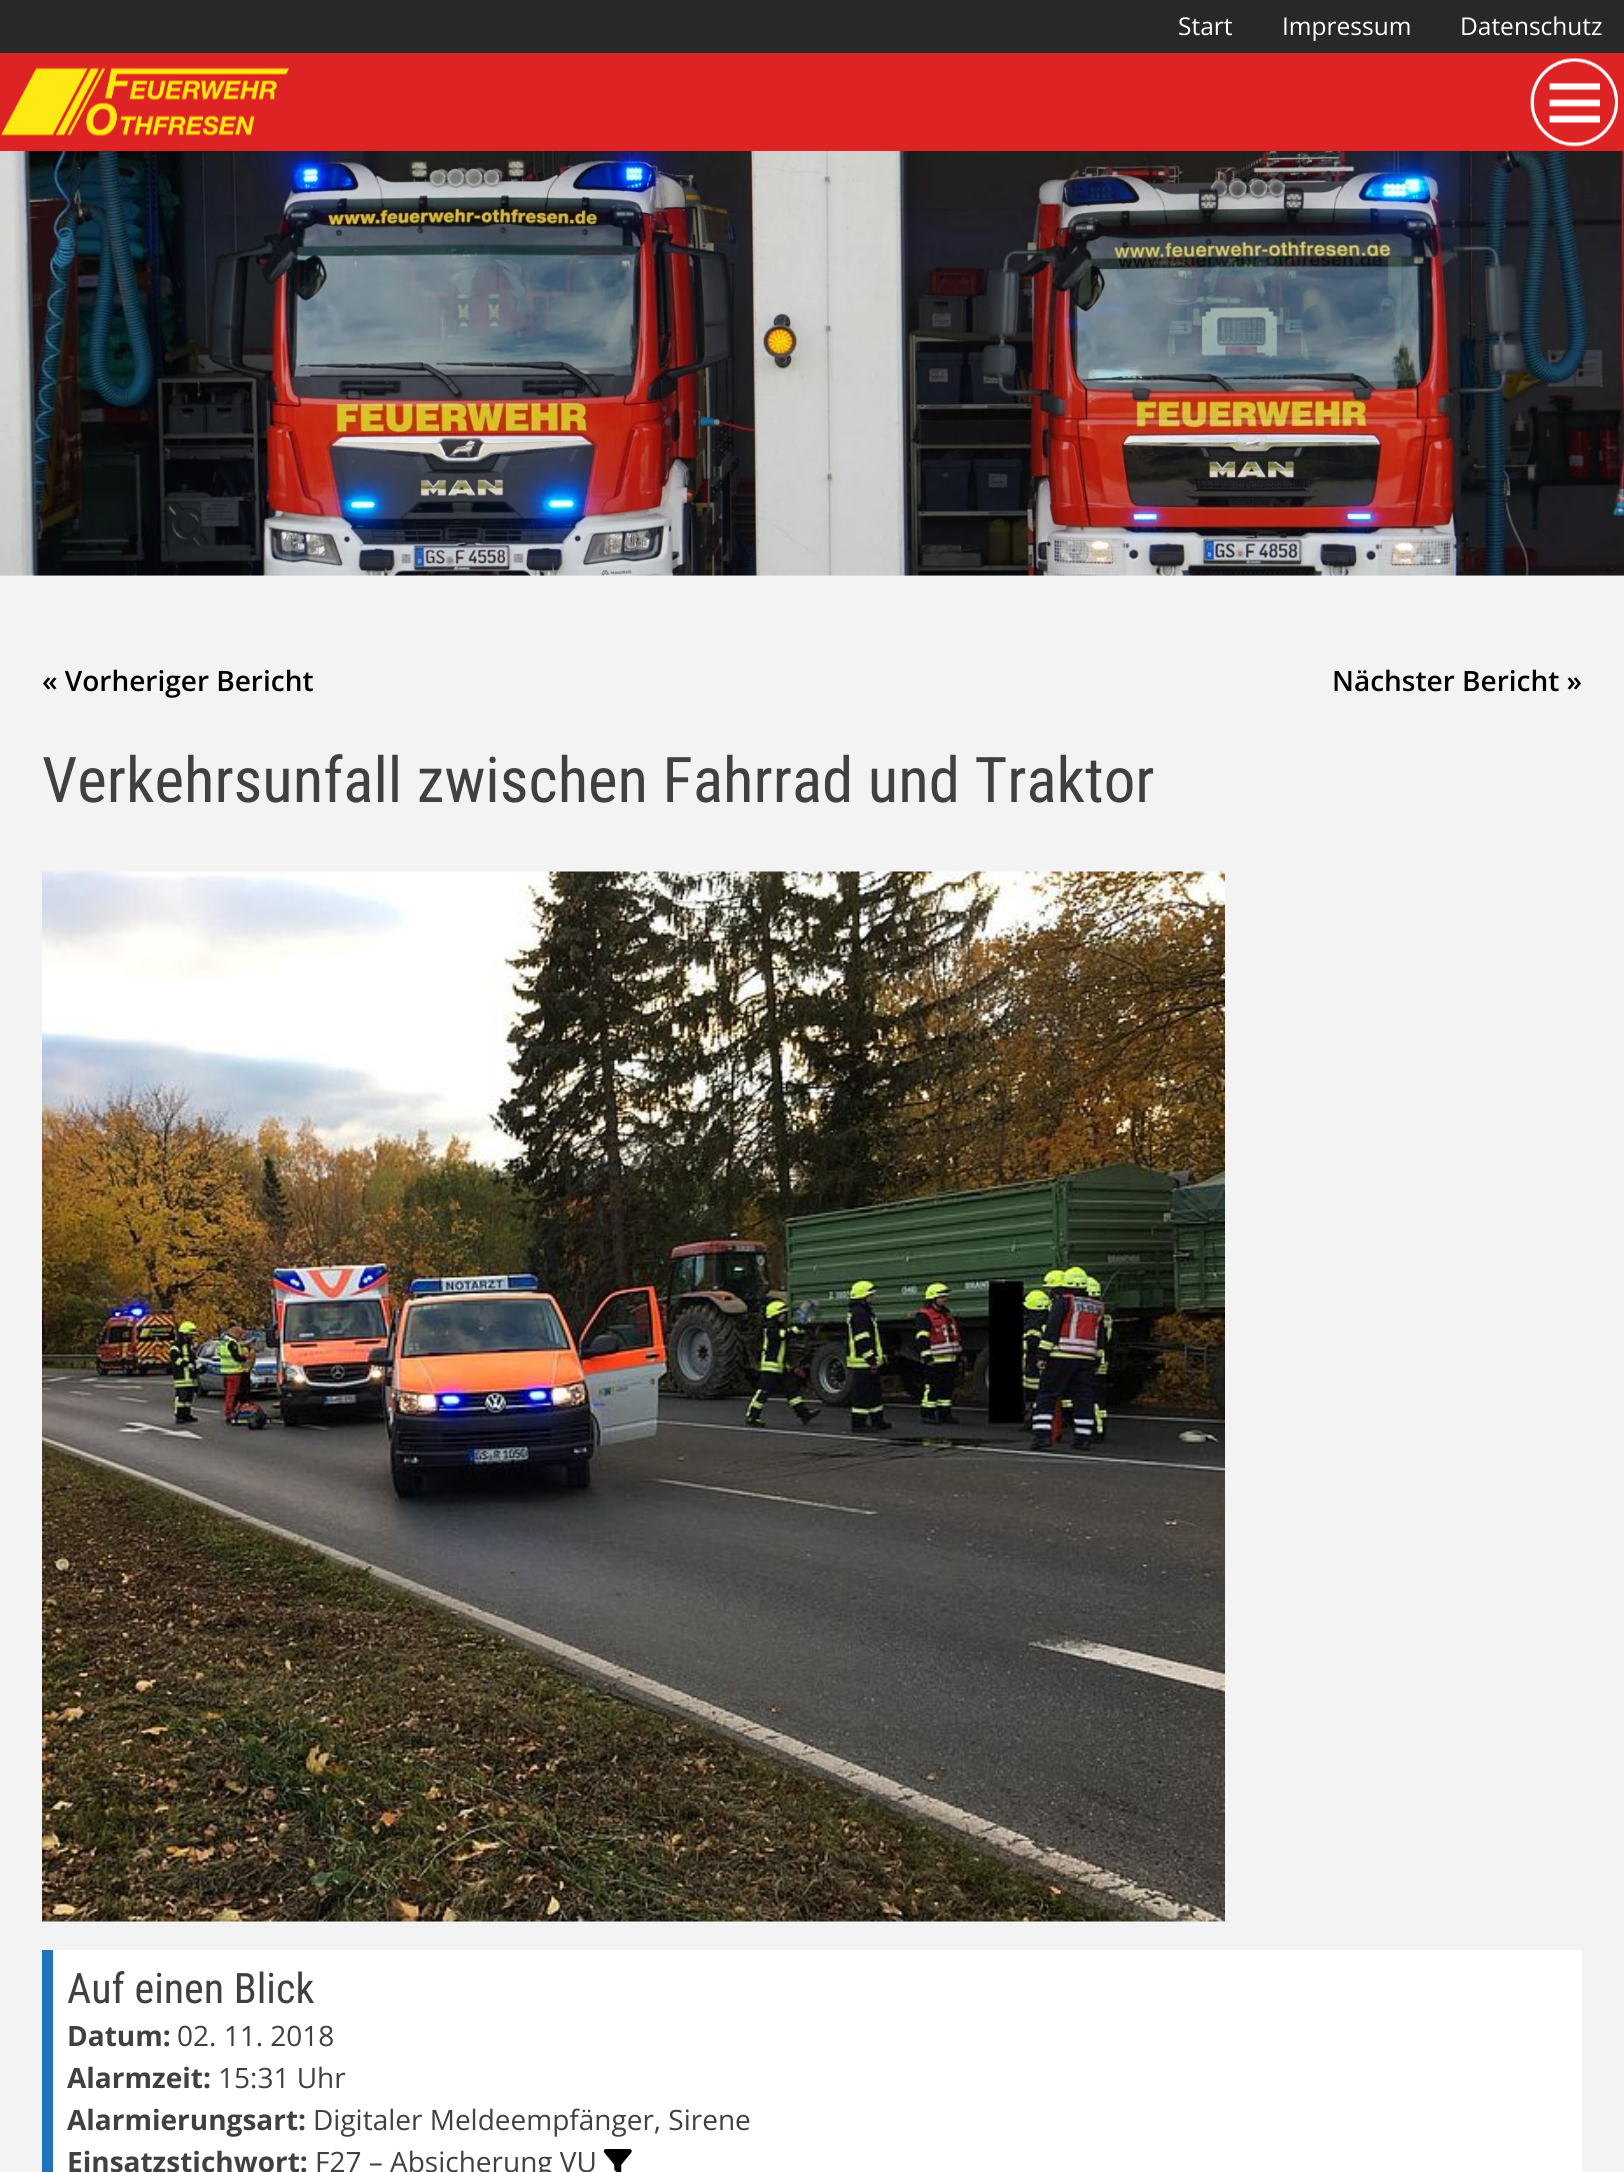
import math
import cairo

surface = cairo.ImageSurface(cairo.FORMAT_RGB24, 1624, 2172)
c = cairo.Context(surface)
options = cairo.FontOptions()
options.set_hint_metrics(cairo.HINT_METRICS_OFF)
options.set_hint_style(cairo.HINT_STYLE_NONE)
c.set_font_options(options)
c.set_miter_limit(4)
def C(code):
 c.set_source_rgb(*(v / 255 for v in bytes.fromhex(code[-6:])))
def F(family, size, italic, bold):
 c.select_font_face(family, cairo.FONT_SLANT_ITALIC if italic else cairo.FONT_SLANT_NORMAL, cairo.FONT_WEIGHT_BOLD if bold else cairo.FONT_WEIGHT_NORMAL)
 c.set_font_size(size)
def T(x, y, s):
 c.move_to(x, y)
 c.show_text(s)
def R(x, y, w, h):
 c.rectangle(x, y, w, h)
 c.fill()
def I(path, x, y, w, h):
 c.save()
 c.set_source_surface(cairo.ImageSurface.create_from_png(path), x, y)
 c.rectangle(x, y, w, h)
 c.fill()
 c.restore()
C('f3f3f3')
c.paint()
C('282828')
R(0,0,1624,53)
F('Open Sans',24.5,0,0)
C('ffffff')
T(1178,35,'Start')
T(1282,35,'Impressum')
T(1460,35,'Datenschutz')
C('dd2323')
R(0,53,1624,98)
I('1.png',1,67,288,70)
I('2.png',1530,58,88,89)
I('3.png',0,151,1624,425)
F('Open Sans SemiBold',28,0,0)
C('000000')
T(42,691,'« Vorheriger Bericht')
T(1332,691,'Nächster Bericht »')
F('Roboto Condensed',63,0,0)
C('404040')
T(42,802,'Verkehrsunfall zwischen Fahrrad und Traktor')
I('4.png',42,871,1183,1051)
C('ffffff')
R(53,1950,1529,222)
C('1e73be')
R(42,1950,11,222)
F('Roboto Condensed',42,0,0)
C('404040')
T(67,2003,'Auf einen Blick')
F('Open Sans',28,0,1)
T(67,2046,'Datum:')
F('Open Sans',28,0,0)
T(177,2046,'02. 11. 2018')
F('Open Sans',28,0,1)
T(67,2088,'Alarmzeit:')
F('Open Sans',28,0,0)
T(218,2088,'15:31 Uhr')
F('Open Sans',28,0,1)
T(67,2130,'Alarmierungsart:')
F('Open Sans',28,0,0)
T(313,2130,'Digitaler Meldeempfänger, Sirene')
F('Open Sans',28,0,1)
T(67,2172,'Einsatzstichwort:')
F('Open Sans',28,0,0)
T(315,2172,'F27 – Absicherung VU')
I('5.png',603,2149,29,23)
surface.write_to_png('o.png')
